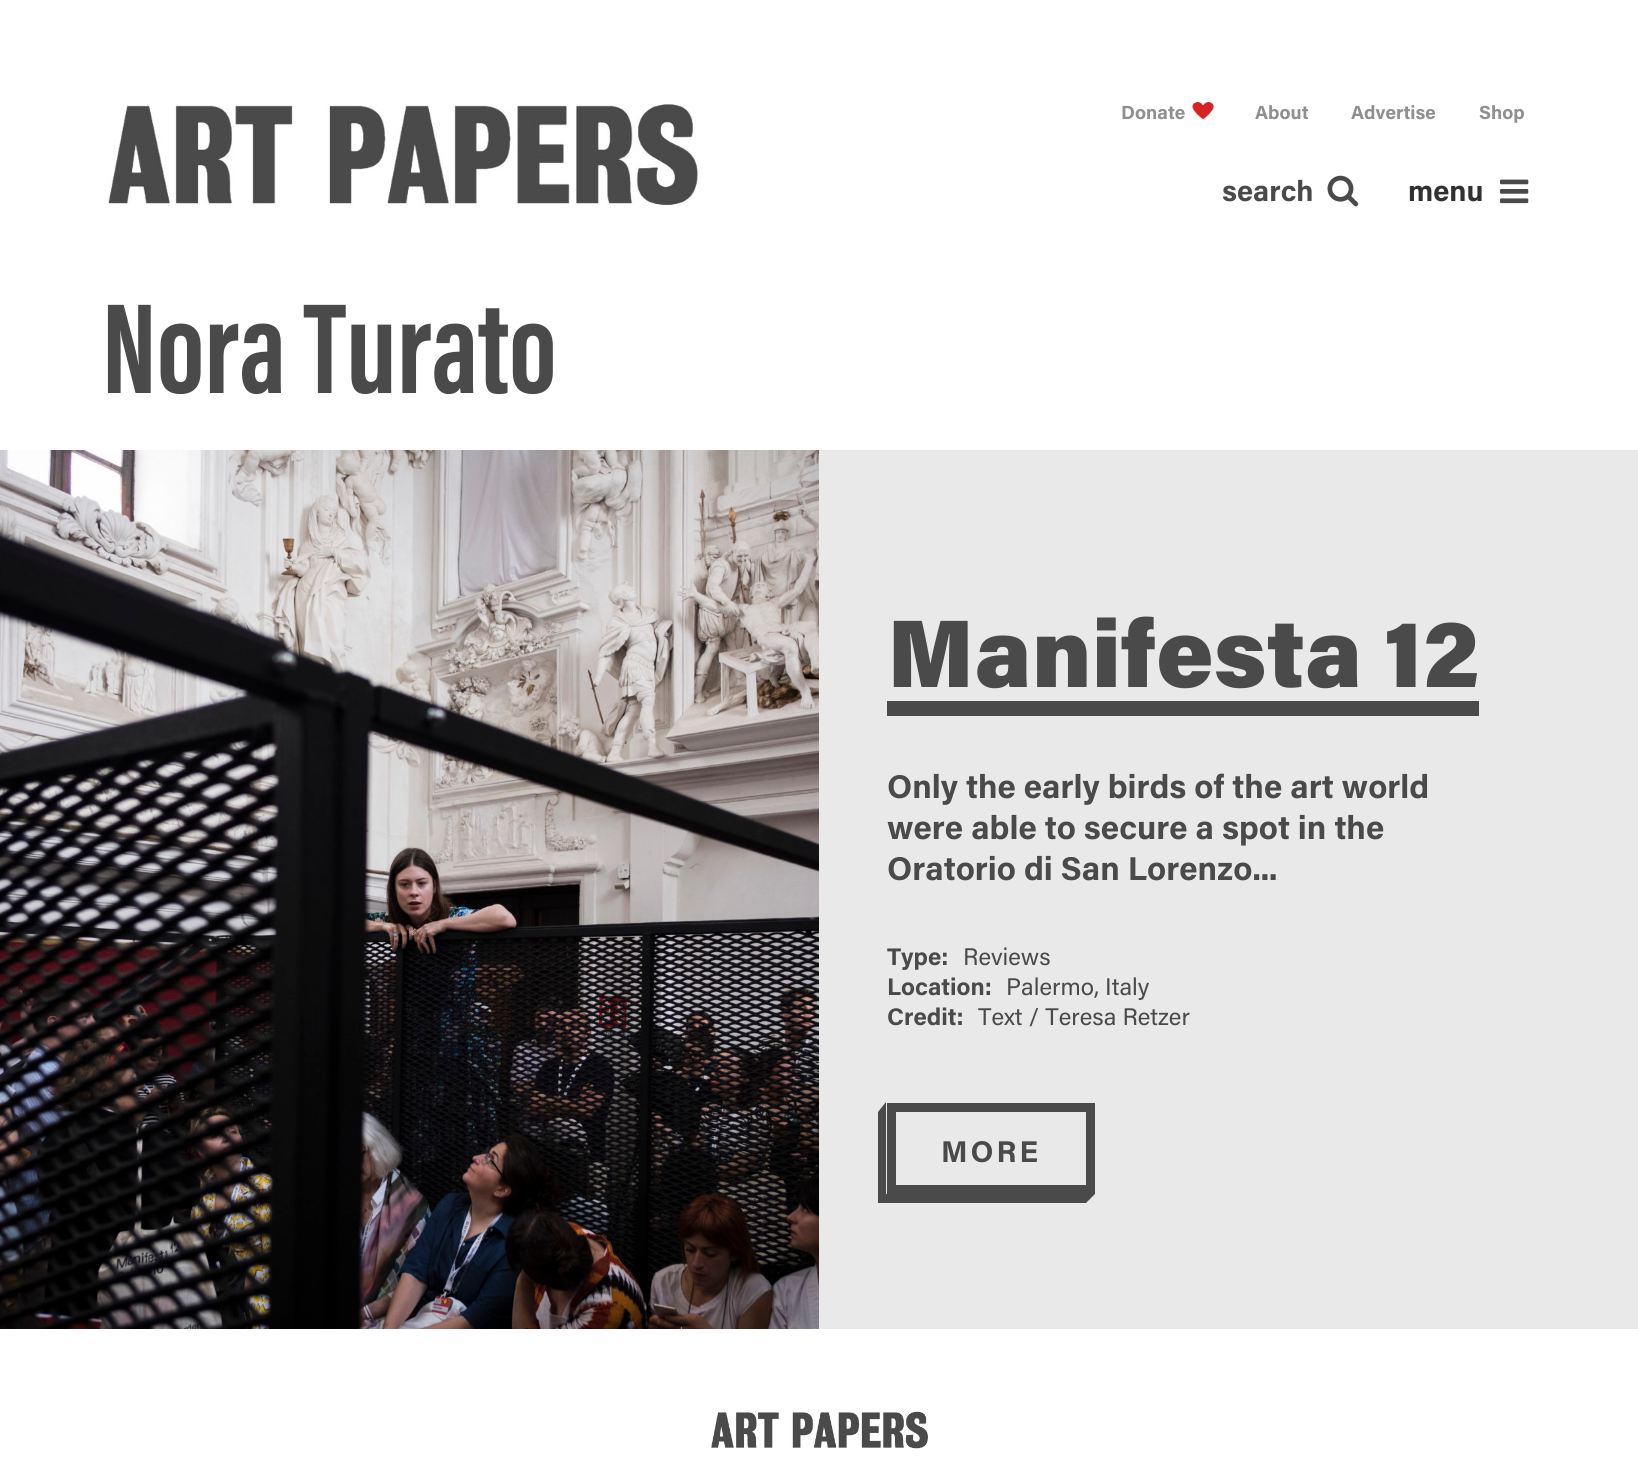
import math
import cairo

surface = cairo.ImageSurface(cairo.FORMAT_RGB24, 1638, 1466)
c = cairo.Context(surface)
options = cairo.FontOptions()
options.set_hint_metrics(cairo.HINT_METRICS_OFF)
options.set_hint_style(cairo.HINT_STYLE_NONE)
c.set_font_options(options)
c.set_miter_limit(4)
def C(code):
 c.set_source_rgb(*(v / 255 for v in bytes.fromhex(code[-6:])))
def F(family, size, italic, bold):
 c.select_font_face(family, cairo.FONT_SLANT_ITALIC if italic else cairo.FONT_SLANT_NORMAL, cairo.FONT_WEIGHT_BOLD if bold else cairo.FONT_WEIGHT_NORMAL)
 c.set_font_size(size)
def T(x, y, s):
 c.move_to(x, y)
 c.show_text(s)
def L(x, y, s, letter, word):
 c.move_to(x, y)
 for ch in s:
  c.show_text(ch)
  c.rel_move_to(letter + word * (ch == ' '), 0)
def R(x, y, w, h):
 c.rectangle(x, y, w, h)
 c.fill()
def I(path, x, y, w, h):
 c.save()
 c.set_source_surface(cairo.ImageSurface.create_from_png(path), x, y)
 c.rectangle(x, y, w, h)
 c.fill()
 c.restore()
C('ffffff')
c.paint()
F('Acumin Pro',19,0,1)
C('8f8f8f')
T(1121,119,'Donate')
I('1.png',1192,102,22,18)
T(1255,119,'About')
T(1351,119,'Advertise')
T(1479,119,'Shop')
F('Acumin Pro',29,0,1)
C('4a4a4a')
T(1222,201,'search')
I('2.png',1327,175,32,32)
C('303133')
T(1408,201,'menu')
I('3.png',1500,179,29,25)
I('4.png',108,104,590,102)
F('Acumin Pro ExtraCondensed',132,0,1)
C('4a4a4a')
T(102,393,'Nora Turato')
C('e9e9e9')
R(819,450,819,879)
I('5.png',0,450,819,879)
F('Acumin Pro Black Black',96,0,0)
C('4a4a4a')
T(887,687,'Manifesta 12')
R(887,701,592,15)
F('Acumin Pro',33,0,1)
T(887,798,'Only the early birds of the art world')
T(887,839,'were able to secure a spot in the')
T(887,880,'Oratorio di San Lorenzo...')
F('Acumin Pro',24,0,1)
T(887,965,'Type:')
F('Acumin Pro',24,0,0)
T(963,965,'Reviews')
F('Acumin Pro',24,0,1)
T(887,995,'Location:')
F('Acumin Pro',24,0,0)
T(1006,995,'Palermo, Italy')
F('Acumin Pro',24,0,1)
T(887,1025,'Credit:')
F('Acumin Pro',24,0,0)
T(978,1025,'Text / Teresa Retzer')
c.rectangle(891.5,1107.5,199,82)
c.set_line_width(9)
c.stroke()
c.new_path()
c.move_to(886,1102)
c.line_to(886,1203)
c.line_to(878,1203)
c.line_to(878,1112)
c.close_path()
c.fill()
F('Acumin Pro',30,0,1)
L(941,1162,'MORE',3,0)
c.new_path()
c.move_to(878,1194)
c.line_to(1095,1194)
c.line_to(1086,1203)
c.line_to(878,1203)
c.close_path()
c.fill()
I('6.png',711,1411,217,38)
surface.write_to_png('o.png')
